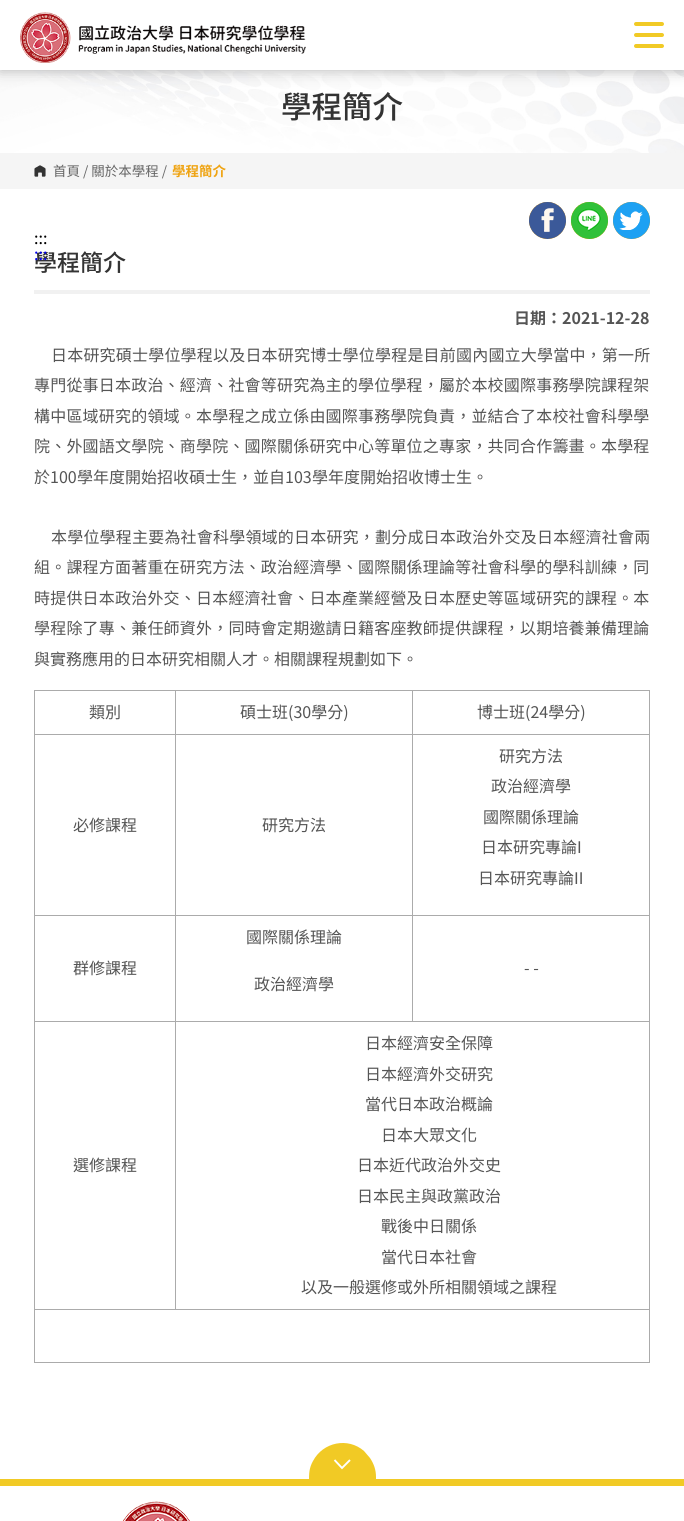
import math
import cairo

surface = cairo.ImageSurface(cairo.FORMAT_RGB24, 684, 1521)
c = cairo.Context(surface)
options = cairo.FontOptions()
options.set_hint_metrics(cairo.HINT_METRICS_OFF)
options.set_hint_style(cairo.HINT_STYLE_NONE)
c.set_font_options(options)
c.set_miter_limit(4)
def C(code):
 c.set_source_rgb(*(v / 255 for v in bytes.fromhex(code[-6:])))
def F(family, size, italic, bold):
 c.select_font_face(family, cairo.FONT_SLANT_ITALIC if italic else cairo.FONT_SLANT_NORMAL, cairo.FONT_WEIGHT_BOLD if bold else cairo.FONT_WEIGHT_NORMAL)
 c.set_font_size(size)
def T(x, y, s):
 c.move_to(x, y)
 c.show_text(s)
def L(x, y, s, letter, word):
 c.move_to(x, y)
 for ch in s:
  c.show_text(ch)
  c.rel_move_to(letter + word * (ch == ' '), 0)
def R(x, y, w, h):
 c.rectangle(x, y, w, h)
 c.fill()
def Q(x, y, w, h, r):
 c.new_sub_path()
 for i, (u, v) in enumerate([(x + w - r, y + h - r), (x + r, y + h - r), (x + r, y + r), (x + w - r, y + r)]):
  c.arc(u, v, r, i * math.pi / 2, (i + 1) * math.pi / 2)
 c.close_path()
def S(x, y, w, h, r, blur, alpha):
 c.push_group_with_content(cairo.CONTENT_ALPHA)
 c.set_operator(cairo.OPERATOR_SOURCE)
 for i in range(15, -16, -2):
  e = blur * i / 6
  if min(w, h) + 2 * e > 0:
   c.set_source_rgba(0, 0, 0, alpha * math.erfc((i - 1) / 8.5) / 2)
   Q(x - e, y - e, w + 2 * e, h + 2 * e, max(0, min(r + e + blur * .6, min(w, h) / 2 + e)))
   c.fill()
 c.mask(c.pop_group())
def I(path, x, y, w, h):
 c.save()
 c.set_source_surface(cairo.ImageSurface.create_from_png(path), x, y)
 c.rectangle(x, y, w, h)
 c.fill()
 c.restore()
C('ffffff')
c.paint()
I('2.png',0,70,684,83)
C('b1b1b1')
S(0,0,684,70,0,7,1)
C('ffffff')
R(0,0,684,70)
I('1.png',20,12,286,51)
C('f1ca25')
Q(634,22,30,4,2)
c.fill()
Q(634,33,30,4,2)
c.fill()
Q(634,44,30,4,2)
c.fill()
F('Noto Sans TC Medium',30.5,0,0)
C('333333')
T(281,118,'學程簡介')
C('f5f5f5')
R(0,153,684,36)
I('3.png',34,165,12,12)
F('Noto Sans TC',13.5,0,0)
C('666666')
T(53,176,'首頁 / 關於本學程 /')
F('Noto Sans TC',13.5,0,1)
C('efa413')
T(172,176,'學程簡介')
F('Noto Sans TC',16,0,0)
C('000000')
T(34,244,':::')
C('f1f1f1')
R(34,290,616,4)
C('efa413')
c.new_path()
c.arc(547.5,220.5,18.5,0,2 * math.pi)
c.fill()
I('4.png',529,202,37,37)
c.arc(589.5,220.5,18.5,0,2 * math.pi)
c.fill()
I('5.png',571,202,37,37)
c.arc(631.5,220.5,18.5,0,2 * math.pi)
c.fill()
I('6.png',613,202,37,37)
F('Noto Sans TC Medium',23,0,0)
C('333333')
T(34,271,'學程簡介')
F('Noto Sans TC',16,0,1)
C('555555')
T(514,324,'日期：2021-12-28')
C('ffffff')
Q(34,325,616,1084,8)
c.fill()
F('Noto Sans CJK TC',16,0,0)
C('555555')
L(51,361,'日本研究碩士學位學程以及日本研究博士學位學程是目前國內國立大學當中，第一所',.2,0)
L(34,391,'專門從事日本政治、經濟、社會等研究為主的學位學程，屬於本校國際事務學院課程架',.2,0)
L(34,422,'構中區域研究的領域。本學程之成立係由國際事務學院負責，並結合了本校社會科學學',.2,0)
L(34,452,'院、外國語文學院、商學院、國際關係研究中心等單位之專家，共同合作籌畫。本學程',.2,0)
T(34,483,'於')
F('Noto Sans TC',16,0,0)
T(50,483,'100')
F('Noto Sans CJK TC',16,0,0)
T(77,483,'學年度開始招收碩士生，並自')
F('Noto Sans TC',16,0,0)
T(285,483,'103')
F('Noto Sans CJK TC',16,0,0)
T(312,483,'學年度開始招收博士生。')
L(51,543,'本學位學程主要為社會科學領域的日本研究，劃分成日本政治外交及日本經濟社會兩',.2,0)
L(34,573,'組。課程方面著重在研究方法、政治經濟學、國際關係理論等社會科學的學科訓練，同',.2,0)
L(34,604,'時提供日本政治外交、日本經濟社會、日本產業經營及日本歷史等區域研究的課程。本',.2,0)
L(34,634,'學程除了專、兼任師資外，同時會定期邀請日籍客座教師提供課程，以期培養兼備理論',.2,0)
T(34,665,'與實務應用的日本研究相關人才。相關課程規劃如下。')
C('ababab')
R(34,690,616,1)
R(649,690,1,673)
R(34,1362,616,1)
R(34,690,1,673)
F('Noto Sans TC',16,0,0)
C('555555')
T(89,718,'類別')
C('ababab')
R(412,734,238,1)
R(412,915,238,1)
R(175,1021,475,1)
R(412,915,1,107)
R(175,915,238,1)
R(412,734,1,182)
R(175,734,238,1)
R(175,1309,475,1)
R(175,1021,1,289)
R(34,1021,142,1)
R(175,915,1,107)
R(34,915,142,1)
R(175,734,1,182)
R(34,734,142,1)
R(175,690,1,45)
C('555555')
T(240,718,'碩士班(30學分)')
C('ababab')
R(412,690,1,45)
C('555555')
T(477,718,'博士班(24學分)')
T(73,831,'必修課程')
T(262,831,'研究方法')
T(499,762,'研究方法')
T(491,792,'政治經濟學')
T(483,823,'國際關係理論')
T(481,853,'日本研究專論I')
T(478,884,'日本研究專論II')
T(73,974,'群修課程')
T(246,943,'國際關係理論')
T(254,990,'政治經濟學')
T(524,974,'- -')
C('ababab')
R(34,1309,142,1)
C('555555')
T(73,1171,'選修課程')
T(365,1049,'日本經濟安全保障')
T(365,1080,'日本經濟外交研究')
T(365,1110,'當代日本政治概論')
T(381,1141,'日本大眾文化')
T(357,1171,'日本近代政治外交史')
T(357,1202,'日本民主與政黨政治')
T(381,1232,'戰後中日關係')
T(381,1263,'當代日本社會')
T(301,1293,'以及一般選修或外所相關領域之課程')
C('0000ee')
T(34,260,':::')
C('f1ca25')
R(0,1479,684,7)
c.save()
c.rectangle(309,1443,67,37)
c.clip()
c.new_path()
c.move_to(376,1477)
c.line_to(376,1481)
c.line_to(309,1481)
c.curve_to(309,1474,309,1468,313,1461)
c.curve_to(323,1442,348,1437,364,1451)
c.line_to(370,1458)
c.curve_to(374,1464,376,1470,376,1477)
c.close_path()
c.fill()
c.restore()
c.new_path()
c.move_to(350,1460)
c.line_to(342,1468)
c.line_to(334.5,1460)
C('ffffff')
c.set_line_width(1.9)
c.stroke()
I('7.png',123,1501,67,20)
surface.write_to_png('o.png')
